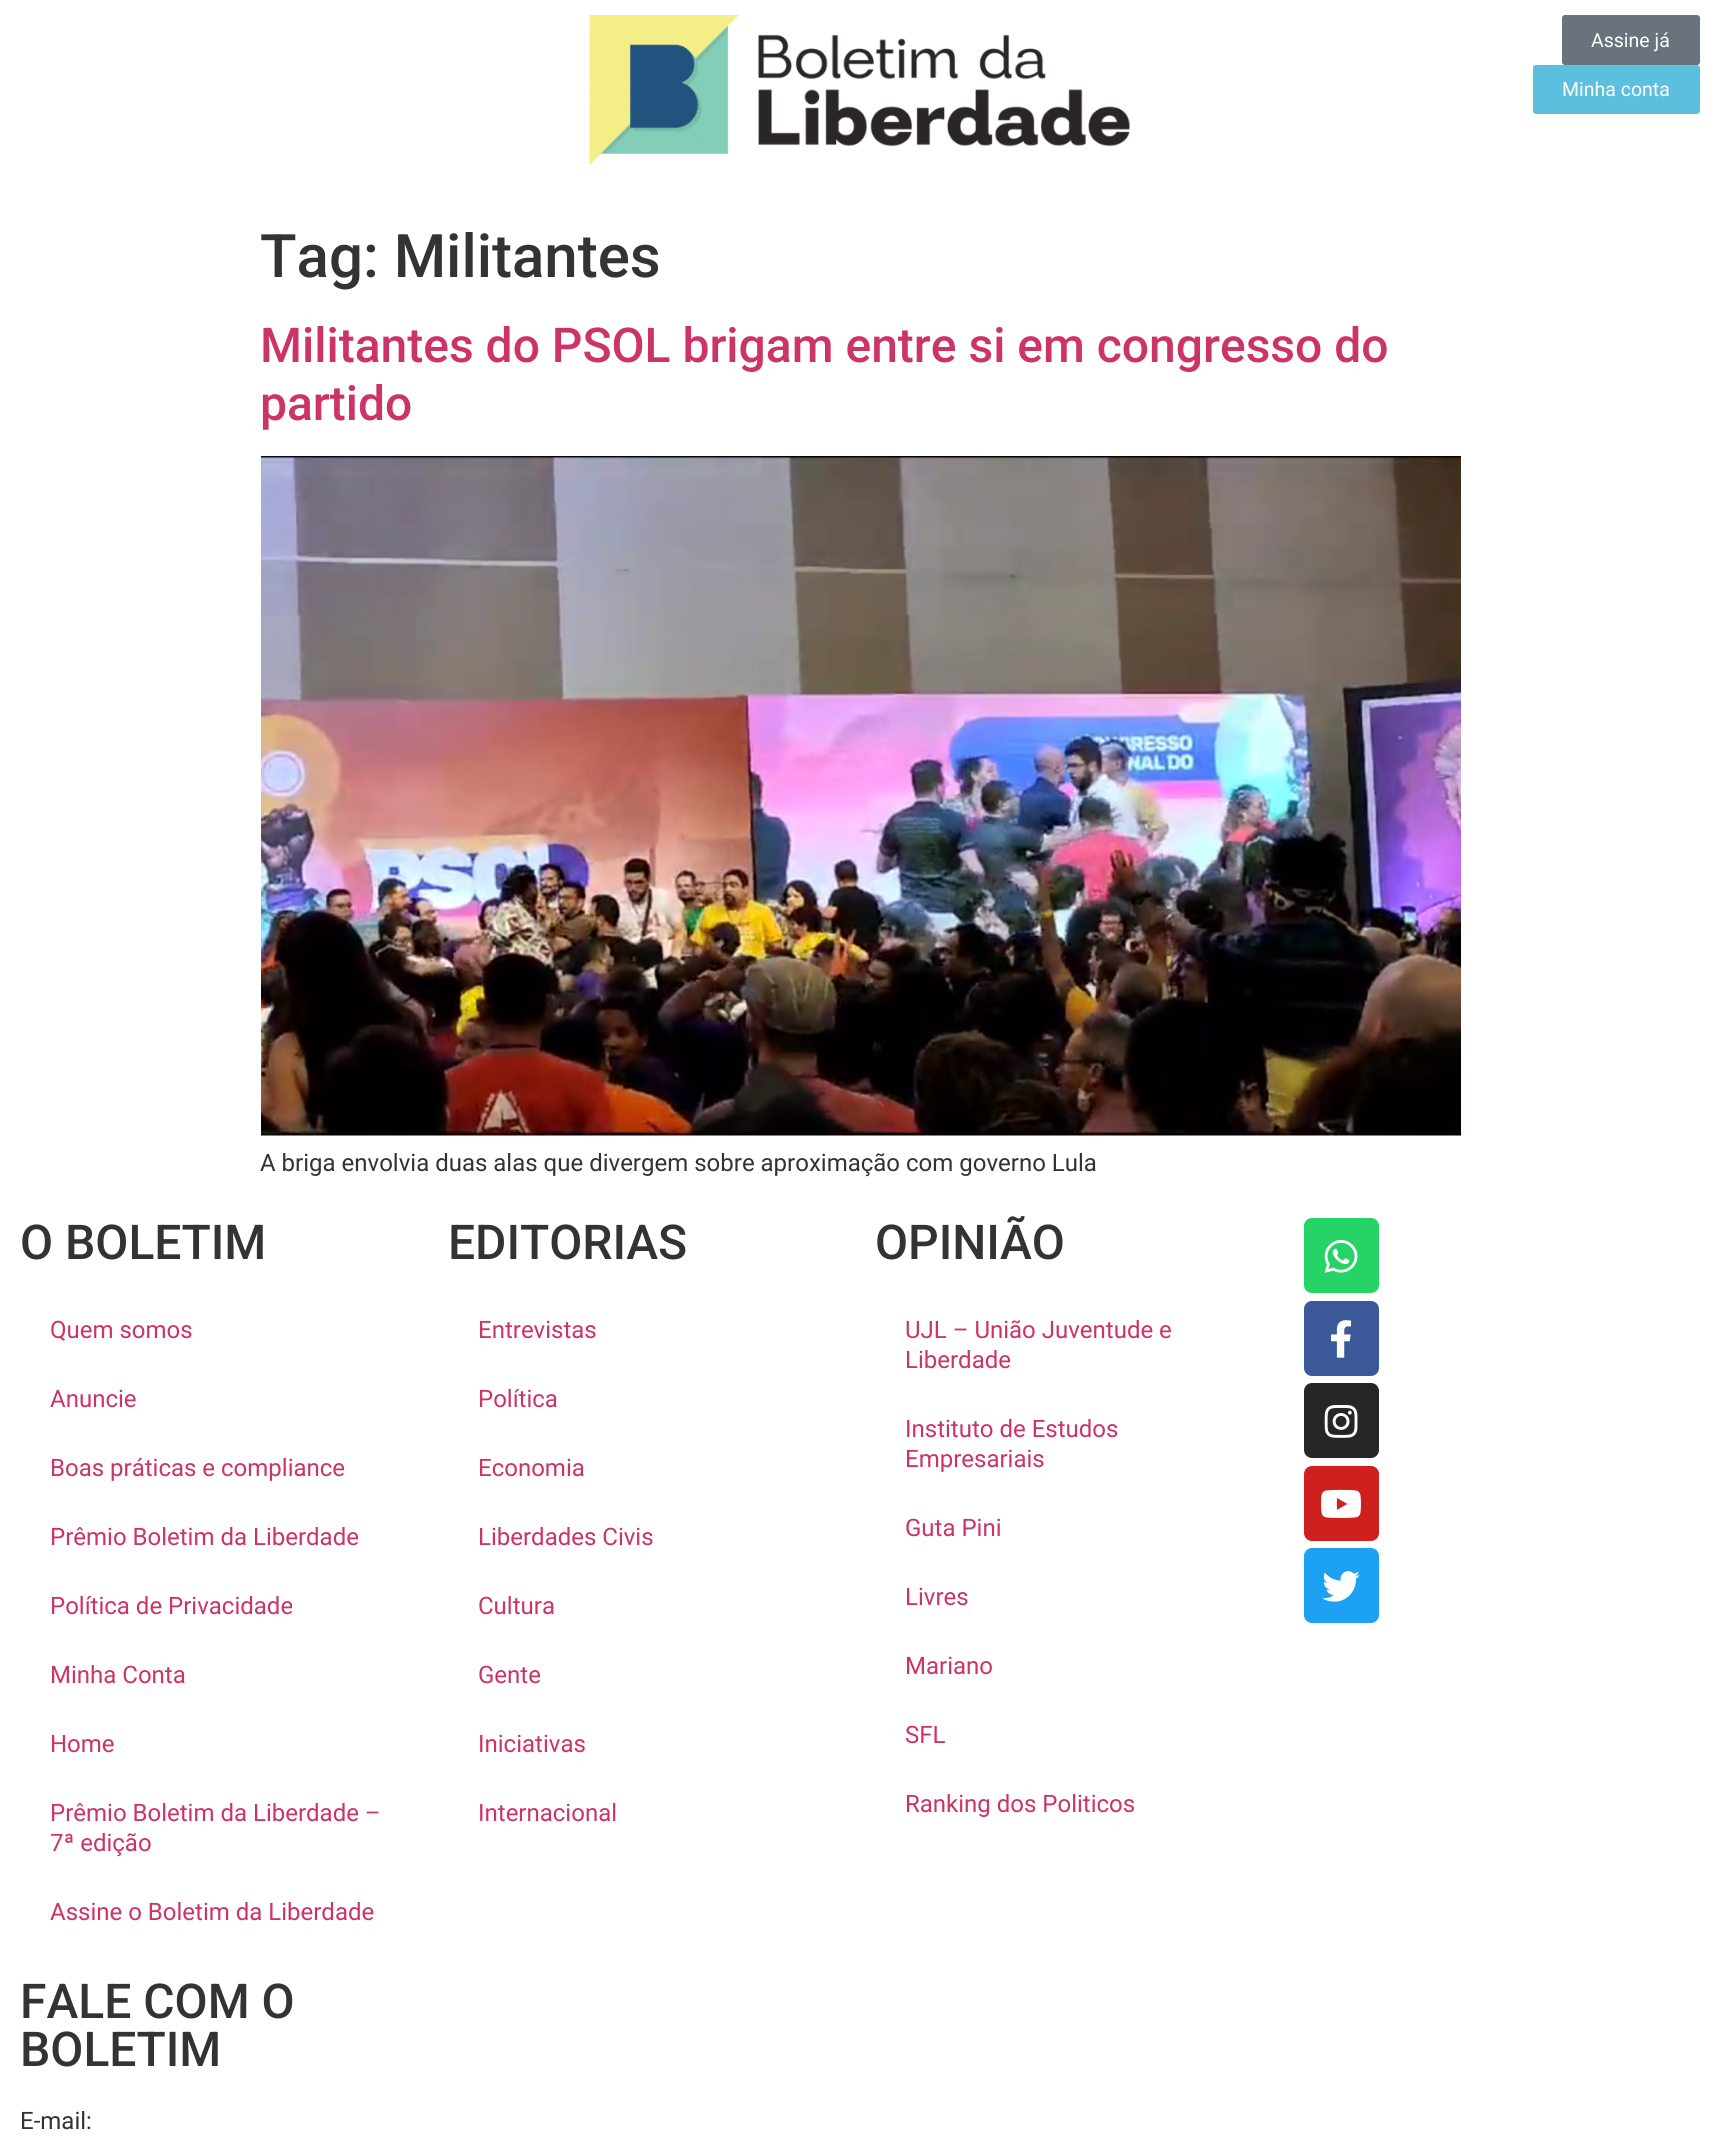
import math
import cairo

surface = cairo.ImageSurface(cairo.FORMAT_RGB24, 1720, 2148)
c = cairo.Context(surface)
options = cairo.FontOptions()
options.set_hint_metrics(cairo.HINT_METRICS_OFF)
options.set_hint_style(cairo.HINT_STYLE_NONE)
c.set_font_options(options)
c.set_miter_limit(4)
def C(code):
 c.set_source_rgb(*(v / 255 for v in bytes.fromhex(code[-6:])))
def F(family, size, italic, bold):
 c.select_font_face(family, cairo.FONT_SLANT_ITALIC if italic else cairo.FONT_SLANT_NORMAL, cairo.FONT_WEIGHT_BOLD if bold else cairo.FONT_WEIGHT_NORMAL)
 c.set_font_size(size)
def T(x, y, s):
 c.move_to(x, y)
 c.show_text(s)
def Q(x, y, w, h, r):
 c.new_sub_path()
 for i, (u, v) in enumerate([(x + w - r, y + h - r), (x + r, y + h - r), (x + r, y + r), (x + w - r, y + r)]):
  c.arc(u, v, r, i * math.pi / 2, (i + 1) * math.pi / 2)
 c.close_path()
def I(path, x, y, w, h):
 c.save()
 c.set_source_surface(cairo.ImageSurface.create_from_png(path), x, y)
 c.rectangle(x, y, w, h)
 c.fill()
 c.restore()
C('ffffff')
c.paint()
I('1.png',589,15,541,150)
C('69727d')
Q(1562,15,138,50,3)
c.fill()
F('Roboto',19.5,0,0)
C('ffffff')
T(1591,47,'Assine já')
C('5bc0de')
Q(1533,65,167,49,3)
c.fill()
C('ffffff')
T(1562,96,'Minha conta')
F('Roboto Medium',60,0,0)
C('333333')
T(260,277,'Tag: Militantes')
F('Roboto Medium',48,0,0)
C('cc3366')
T(260,362,'Militantes do PSOL brigam entre si em congresso do')
T(260,420,'partido')
I('2.png',261,456,1200,680)
F('Roboto',24,0,0)
C('333333')
T(260,1171,'A briga envolvia duas alas que divergem sobre aproximação com governo Lula')
F('Roboto Medium',48,0,0)
T(20,1259,'O BOLETIM')
F('Roboto',24,0,0)
C('cc3366')
T(50,1338,'Quem somos')
T(50,1407,'Anuncie')
T(50,1476,'Boas práticas e compliance')
T(50,1545,'Prêmio Boletim da Liberdade')
T(50,1614,'Política de Privacidade')
T(50,1683,'Minha Conta')
T(50,1752,'Home')
T(50,1821,'Prêmio Boletim da Liberdade –')
T(50,1851,'7ª edição')
T(50,1920,'Assine o Boletim da Liberdade')
F('Roboto Medium',48,0,0)
C('333333')
T(20,2018,'FALE COM O')
T(20,2066,'BOLETIM')
F('Roboto',24,0,0)
T(20,2129,'E-mail:')
F('Roboto Medium',48,0,0)
T(448,1259,'EDITORIAS')
F('Roboto',24,0,0)
C('cc3366')
T(478,1338,'Entrevistas')
T(478,1407,'Política')
T(478,1476,'Economia')
T(478,1545,'Liberdades Civis')
T(478,1614,'Cultura')
T(478,1683,'Gente')
T(478,1752,'Iniciativas')
T(478,1821,'Internacional')
F('Roboto Medium',48,0,0)
C('333333')
T(875,1259,'OPINIÃO')
F('Roboto',24,0,0)
C('cc3366')
T(905,1338,'UJL – União Juventude e')
T(905,1368,'Liberdade')
T(905,1437,'Instituto de Estudos')
T(905,1467,'Empresariais')
T(905,1536,'Guta Pini')
T(905,1605,'Livres')
T(905,1674,'Mariano')
T(905,1743,'SFL')
T(905,1812,'Ranking dos Politicos')
C('25d366')
Q(1304,1218,75,75,8)
c.fill()
I('3.png',1324,1240,34,33)
C('3b5998')
Q(1304,1301,75,75,8)
c.fill()
I('4.png',1330,1320,22,38)
C('262626')
Q(1304,1383,75,75,8)
c.fill()
I('5.png',1324,1405,34,33)
C('cd201f')
Q(1304,1466,75,75,8)
c.fill()
I('6.png',1321,1489,40,29)
C('1da1f2')
Q(1304,1548,75,75,8)
c.fill()
I('7.png',1322,1571,38,31)
surface.write_to_png('o.png')
